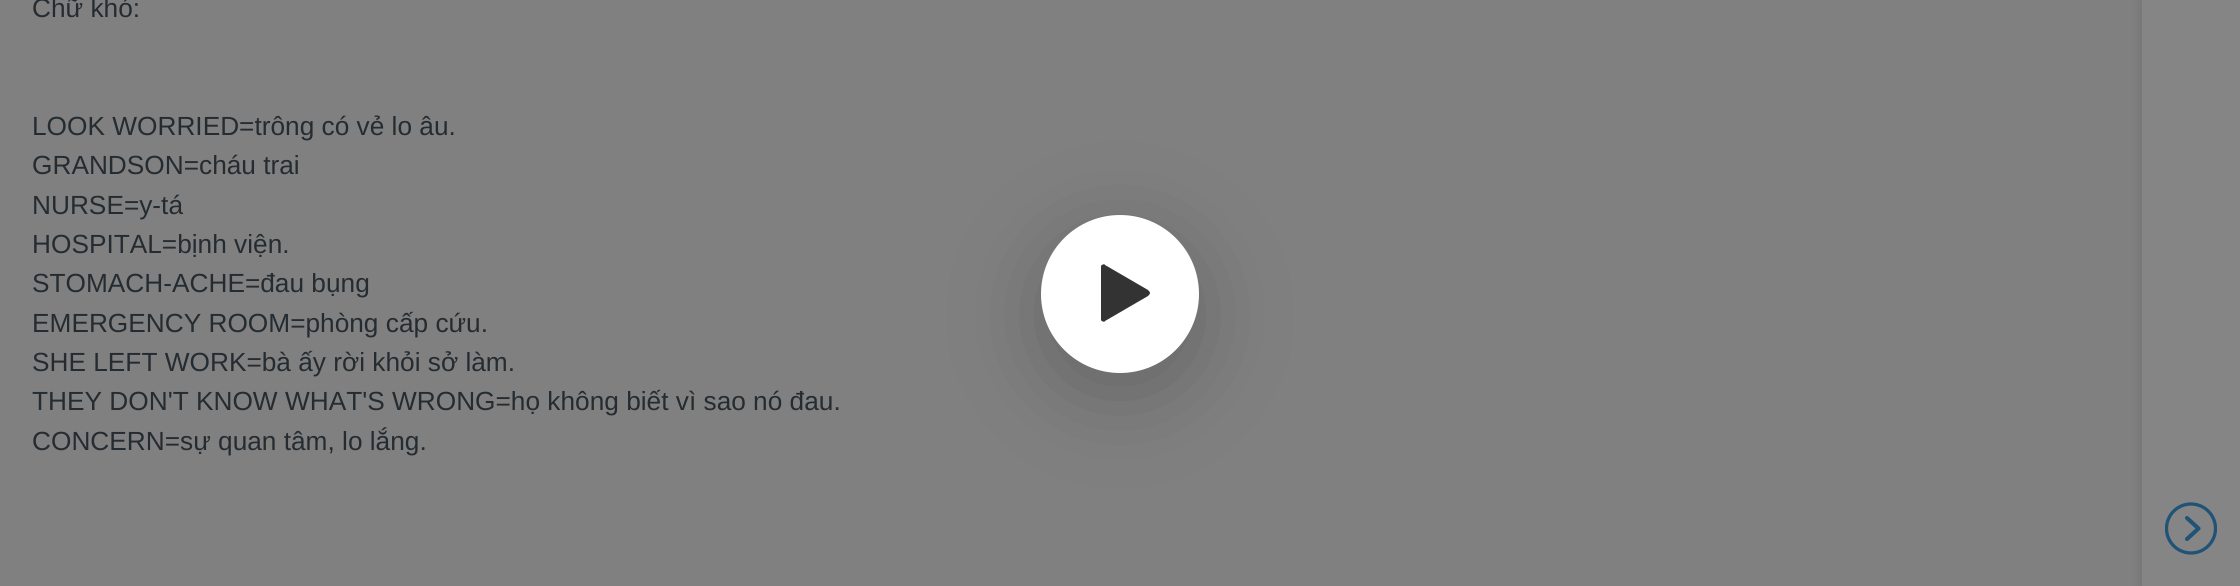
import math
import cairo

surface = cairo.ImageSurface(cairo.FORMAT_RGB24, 2240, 586)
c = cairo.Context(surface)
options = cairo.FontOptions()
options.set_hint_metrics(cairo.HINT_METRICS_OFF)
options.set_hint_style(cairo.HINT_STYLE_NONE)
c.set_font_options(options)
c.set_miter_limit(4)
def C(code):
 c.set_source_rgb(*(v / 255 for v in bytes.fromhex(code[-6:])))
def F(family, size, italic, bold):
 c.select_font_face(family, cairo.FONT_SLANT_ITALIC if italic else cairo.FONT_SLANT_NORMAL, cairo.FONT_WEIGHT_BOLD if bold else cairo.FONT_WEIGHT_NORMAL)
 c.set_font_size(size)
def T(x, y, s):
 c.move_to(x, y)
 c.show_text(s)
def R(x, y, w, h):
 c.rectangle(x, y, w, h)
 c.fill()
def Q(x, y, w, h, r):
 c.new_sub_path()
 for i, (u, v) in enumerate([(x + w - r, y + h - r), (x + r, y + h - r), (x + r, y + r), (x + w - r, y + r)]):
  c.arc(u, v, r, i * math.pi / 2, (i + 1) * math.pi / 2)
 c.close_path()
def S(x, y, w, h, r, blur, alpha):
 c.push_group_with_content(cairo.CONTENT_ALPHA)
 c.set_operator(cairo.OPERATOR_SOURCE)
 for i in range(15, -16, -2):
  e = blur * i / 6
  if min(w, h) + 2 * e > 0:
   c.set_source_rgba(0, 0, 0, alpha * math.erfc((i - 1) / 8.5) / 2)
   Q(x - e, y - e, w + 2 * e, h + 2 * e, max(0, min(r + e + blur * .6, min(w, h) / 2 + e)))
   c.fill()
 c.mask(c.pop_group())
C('808080')
c.paint()
F('Liberation Sans',26.25,0,0)
C('252c31')
T(32,17,'Chữ khó:')
T(32,135,'LOOK WORRIED=trông có vẻ lo âu.')
T(32,174,'GRANDSON=cháu trai')
T(32,214,'NURSE=y-tá')
T(32,253,'HOSPITAL=bịnh viện.')
T(32,292,'STOMACH-ACHE=đau bụng')
T(32,332,'EMERGENCY ROOM=phòng cấp cứu.')
T(32,371,'SHE LEFT WORK=bà ấy rời khỏi sở làm.')
T(32,410,'THEY DON\'T KNOW WHAT\'S WRONG=họ không biết vì sao nó đau.')
T(32,450,'CONCERN=sự quan tâm, lo lắng.')
C('000000')
S(1041,236,158,158,79,44,.2)
C('ffffff')
c.arc(1120,294,79,0,2 * math.pi)
c.fill()
C('333333')
c.new_path()
c.move_to(1101,267)
c.line_to(1101,319)
c.curve_to(1101,320,1101,321,1102,321)
c.curve_to(1103,322,1105,322,1105,321)
c.line_to(1148,296)
c.curve_to(1149,295,1150,294,1150,293)
c.curve_to(1150,292,1149,291,1148,290)
c.line_to(1105,265)
c.curve_to(1105,264,1103,264,1102,265)
c.curve_to(1101,265,1101,266,1101,267)
c.close_path()
c.fill()
C('000000')
S(2140,0,98,586,0,5,.1)
C('858585')
R(2142,0,98,586)
c.save()
c.rectangle(2165,502,52,53)
c.clip()
c.arc(2191,528.5,24.5,0,2 * math.pi)
C('205375')
c.set_line_width(3.3)
c.stroke()
c.restore()
c.new_path()
c.move_to(2187,539)
c.line_to(2198.5,528.5)
c.line_to(2187,518)
C('205375')
c.set_line_width(4.1)
c.set_line_cap(cairo.LINE_CAP_ROUND)
c.set_line_join(cairo.LINE_JOIN_ROUND)
c.stroke()
surface.write_to_png('o.png')
